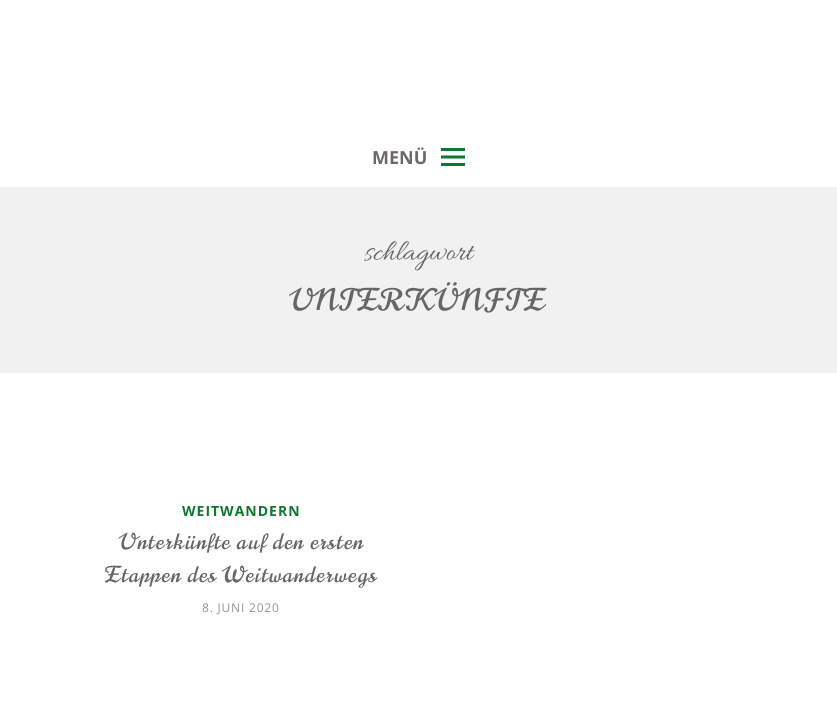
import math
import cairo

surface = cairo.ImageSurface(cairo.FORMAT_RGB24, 837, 727)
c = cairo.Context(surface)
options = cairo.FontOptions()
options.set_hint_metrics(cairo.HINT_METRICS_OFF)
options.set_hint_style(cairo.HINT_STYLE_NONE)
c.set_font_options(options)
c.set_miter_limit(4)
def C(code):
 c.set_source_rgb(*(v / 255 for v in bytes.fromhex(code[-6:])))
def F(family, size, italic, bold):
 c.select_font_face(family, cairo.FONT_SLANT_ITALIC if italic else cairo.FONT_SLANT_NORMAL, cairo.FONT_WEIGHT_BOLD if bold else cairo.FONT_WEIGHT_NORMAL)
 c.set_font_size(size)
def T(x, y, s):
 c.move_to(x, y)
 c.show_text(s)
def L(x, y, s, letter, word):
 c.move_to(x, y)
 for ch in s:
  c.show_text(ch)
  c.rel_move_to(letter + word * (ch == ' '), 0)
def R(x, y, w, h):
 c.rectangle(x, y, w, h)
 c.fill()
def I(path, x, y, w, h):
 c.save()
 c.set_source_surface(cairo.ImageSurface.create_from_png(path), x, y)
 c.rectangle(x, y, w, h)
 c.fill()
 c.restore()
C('ffffff')
c.paint()
F('Open Sans',18,0,1)
C('6d686c')
T(372,164,'MENÜ')
I('1.png',441,148,24,18)
C('f1f1f1')
R(0,187,837,186)
F('Allura',30,0,0)
C('666666')
T(364,259,'schlagwort')
F('Norican',30,0,0)
L(290,310,'UNTERKÜNFTE',2.1,0)
F('Open Sans',14,0,1)
C('0f7633')
L(182,516,'WEITWANDERN',1,0)
F('Norican',22,0,0)
C('666666')
L(119,549,'Unterkünfte auf den ersten',1.55,0)
L(105,582,'Etappen des Weitwanderwegs',1.55,0)
F('Open Sans',12,0,0)
C('959595')
L(202,612,'8. JUNI 2020',.8,0)
surface.write_to_png('o.png')
